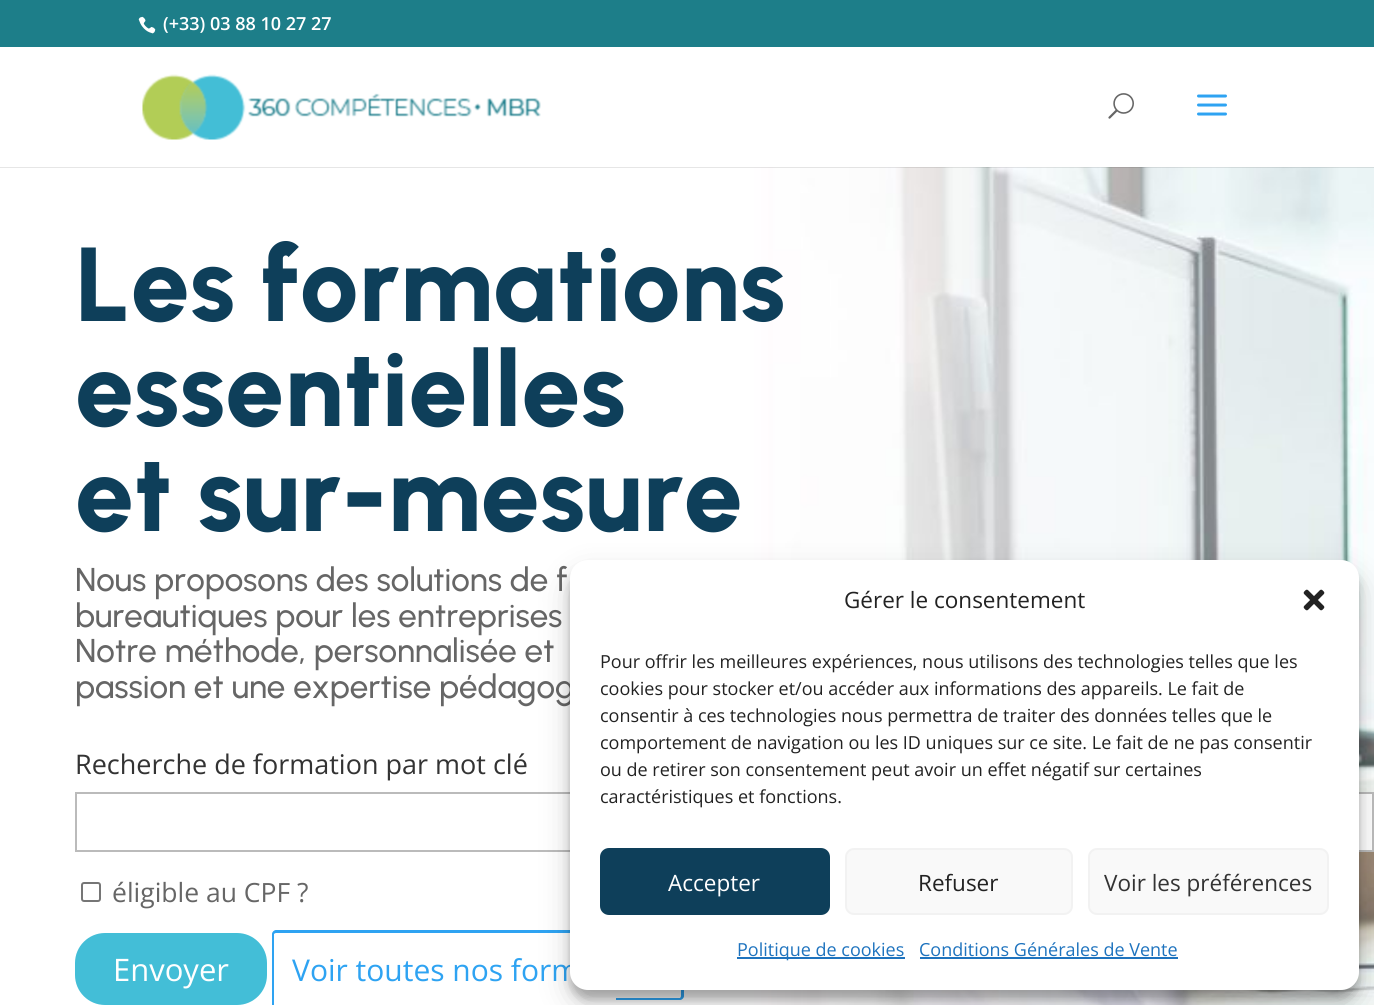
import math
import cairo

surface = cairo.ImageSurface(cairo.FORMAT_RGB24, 1374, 1005)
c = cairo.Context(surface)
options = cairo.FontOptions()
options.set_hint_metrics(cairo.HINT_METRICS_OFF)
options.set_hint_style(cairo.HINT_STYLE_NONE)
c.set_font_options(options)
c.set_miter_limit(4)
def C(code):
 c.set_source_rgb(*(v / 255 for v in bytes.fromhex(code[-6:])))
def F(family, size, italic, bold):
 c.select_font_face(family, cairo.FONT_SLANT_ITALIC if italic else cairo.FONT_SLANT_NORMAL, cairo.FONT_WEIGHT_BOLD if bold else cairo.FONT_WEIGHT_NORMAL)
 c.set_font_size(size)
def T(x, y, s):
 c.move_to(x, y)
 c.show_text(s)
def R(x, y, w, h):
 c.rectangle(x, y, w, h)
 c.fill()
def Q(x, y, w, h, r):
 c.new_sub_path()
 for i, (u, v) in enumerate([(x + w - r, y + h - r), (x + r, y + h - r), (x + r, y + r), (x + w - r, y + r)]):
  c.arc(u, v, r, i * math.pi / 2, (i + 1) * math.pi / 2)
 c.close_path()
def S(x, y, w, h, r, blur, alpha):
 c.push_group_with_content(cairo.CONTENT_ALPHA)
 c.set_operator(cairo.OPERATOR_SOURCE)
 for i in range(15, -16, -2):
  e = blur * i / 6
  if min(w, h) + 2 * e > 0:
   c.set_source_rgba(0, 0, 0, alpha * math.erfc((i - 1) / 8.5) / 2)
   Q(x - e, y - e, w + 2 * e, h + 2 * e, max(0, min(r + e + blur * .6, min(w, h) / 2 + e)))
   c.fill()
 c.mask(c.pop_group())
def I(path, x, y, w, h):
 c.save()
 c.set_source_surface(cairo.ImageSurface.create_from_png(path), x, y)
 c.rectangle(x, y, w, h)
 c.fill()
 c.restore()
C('ffffff')
c.paint()
C('1d7e89')
R(0,0,1374,47)
I('1.png',138,16,18,18)
F('Open Sans SemiBold',18,0,0)
C('ffffff')
T(163,30,'(+33) 03 88 10 27 27')
I('5.png',0,167,1374,838)
c.set_source_rgba(0,0,0,0.1)
R(0,167,1374,1)
I('2.png',142,74,399,66)
I('3.png',1108,93,26,26)
I('4.png',1197,94,30,22)
F('Urbanist ExtraBold',105,0,0)
C('0e3f5a')
T(75,321,'Les formations')
T(75,426,'essentielles')
T(75,531,'et sur-mesure')
F('Urbanist Medium',33,0,0)
C('666666')
T(75,591,'Nous proposons des solutions de f')
T(75,627,'bureautiques pour les entreprises')
T(75,662,'Notre méthode, personnalisée et')
T(75,698,'passion et une expertise pédagog')
F('Open Sans',27,0,0)
C('333333')
T(75,774,'Recherche de formation par mot clé')
C('ffffff')
R(761,794,611,56)
c.rectangle(76,793,1297,58)
C('bbbbbb')
c.stroke()
Q(82,883,18,18,2)
C('767676')
c.stroke()
F('Open Sans',26.5,0,0)
C('666666')
T(112,902,'éligible au CPF ?')
C('43bed7')
Q(75,933,192,72,30)
c.fill()
F('Open Sans',31,0,0)
C('ffffff')
T(113,981,'Envoyer')
C('2ea3f2')
c.set_fill_rule(cairo.FILL_RULE_EVEN_ODD)
c.new_path()
c.move_to(276,930)
c.line_to(664,930)
c.line_to(664,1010)
c.line_to(276,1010)
c.curve_to(274,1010,272,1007,272,1005)
c.line_to(272,934)
c.curve_to(272,932,274,930,276,930)
c.close_path()
c.move_to(276,933)
c.line_to(664,933)
c.line_to(664,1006)
c.line_to(276,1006)
c.curve_to(275,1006,274,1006,274,1005)
c.line_to(274,934)
c.curve_to(274,934,275,933,276,933)
c.close_path()
c.fill()
F('Open Sans',30,0,0)
T(292,981,'Voir toutes nos form')
c.new_path()
c.move_to(616,914)
c.line_to(680,914)
c.curve_to(682,914,684,916,684,918)
c.line_to(684,996)
c.curve_to(684,998,682,1000,680,1000)
c.line_to(616,1000)
c.close_path()
c.move_to(616,916)
c.line_to(680,916)
c.curve_to(680,916,681,917,681,918)
c.line_to(681,996)
c.curve_to(681,997,680,998,680,998)
c.line_to(616,998)
c.close_path()
c.fill()
C('000000')
S(570,569,789,430,18,4.5,.23)
S(570,575,789,430,18,15,.19)
C('ffffff')
Q(570,560,789,430,18)
c.fill()
F('Open Sans',22.5,0,0)
C('222222')
T(844,608,'Gérer le consentement')
I('6.png',1303,589,22,22)
F('Open Sans',18,0,0)
T(600,668,'Pour offrir les meilleures expériences, nous utilisons des technologies telles que les')
T(600,695,'cookies pour stocker et/ou accéder aux informations des appareils. Le fait de')
T(600,722,'consentir à ces technologies nous permettra de traiter des données telles que le')
T(600,749,'comportement de navigation ou les ID uniques sur ce site. Le fait de ne pas consentir')
T(600,776,'ou de retirer son consentement peut avoir un effet négatif sur certaines')
T(600,803,'caractéristiques et fonctions.')
C('0e3f5a')
Q(601,849,228,65,8)
c.fill_preserve()
c.stroke()
F('Open Sans',22.5,0,0)
C('ffffff')
T(668,891,'Accepter')
C('f9f9f9')
Q(846,849,226,65,8)
c.fill_preserve()
C('f2f2f2')
c.stroke()
C('222222')
T(918,891,'Refuser')
C('f9f9f9')
Q(1089,849,239,65,8)
c.fill_preserve()
C('f2f2f2')
c.stroke()
C('333333')
T(1104,891,'Voir les préférences')
C('1e73be')
R(737,957,168,2)
F('Open Sans',18,0,0)
T(737,956,'Politique de cookies')
T(919,956,'Conditions Générales de Vente')
R(920,957,258,2)
surface.write_to_png('o.png')
